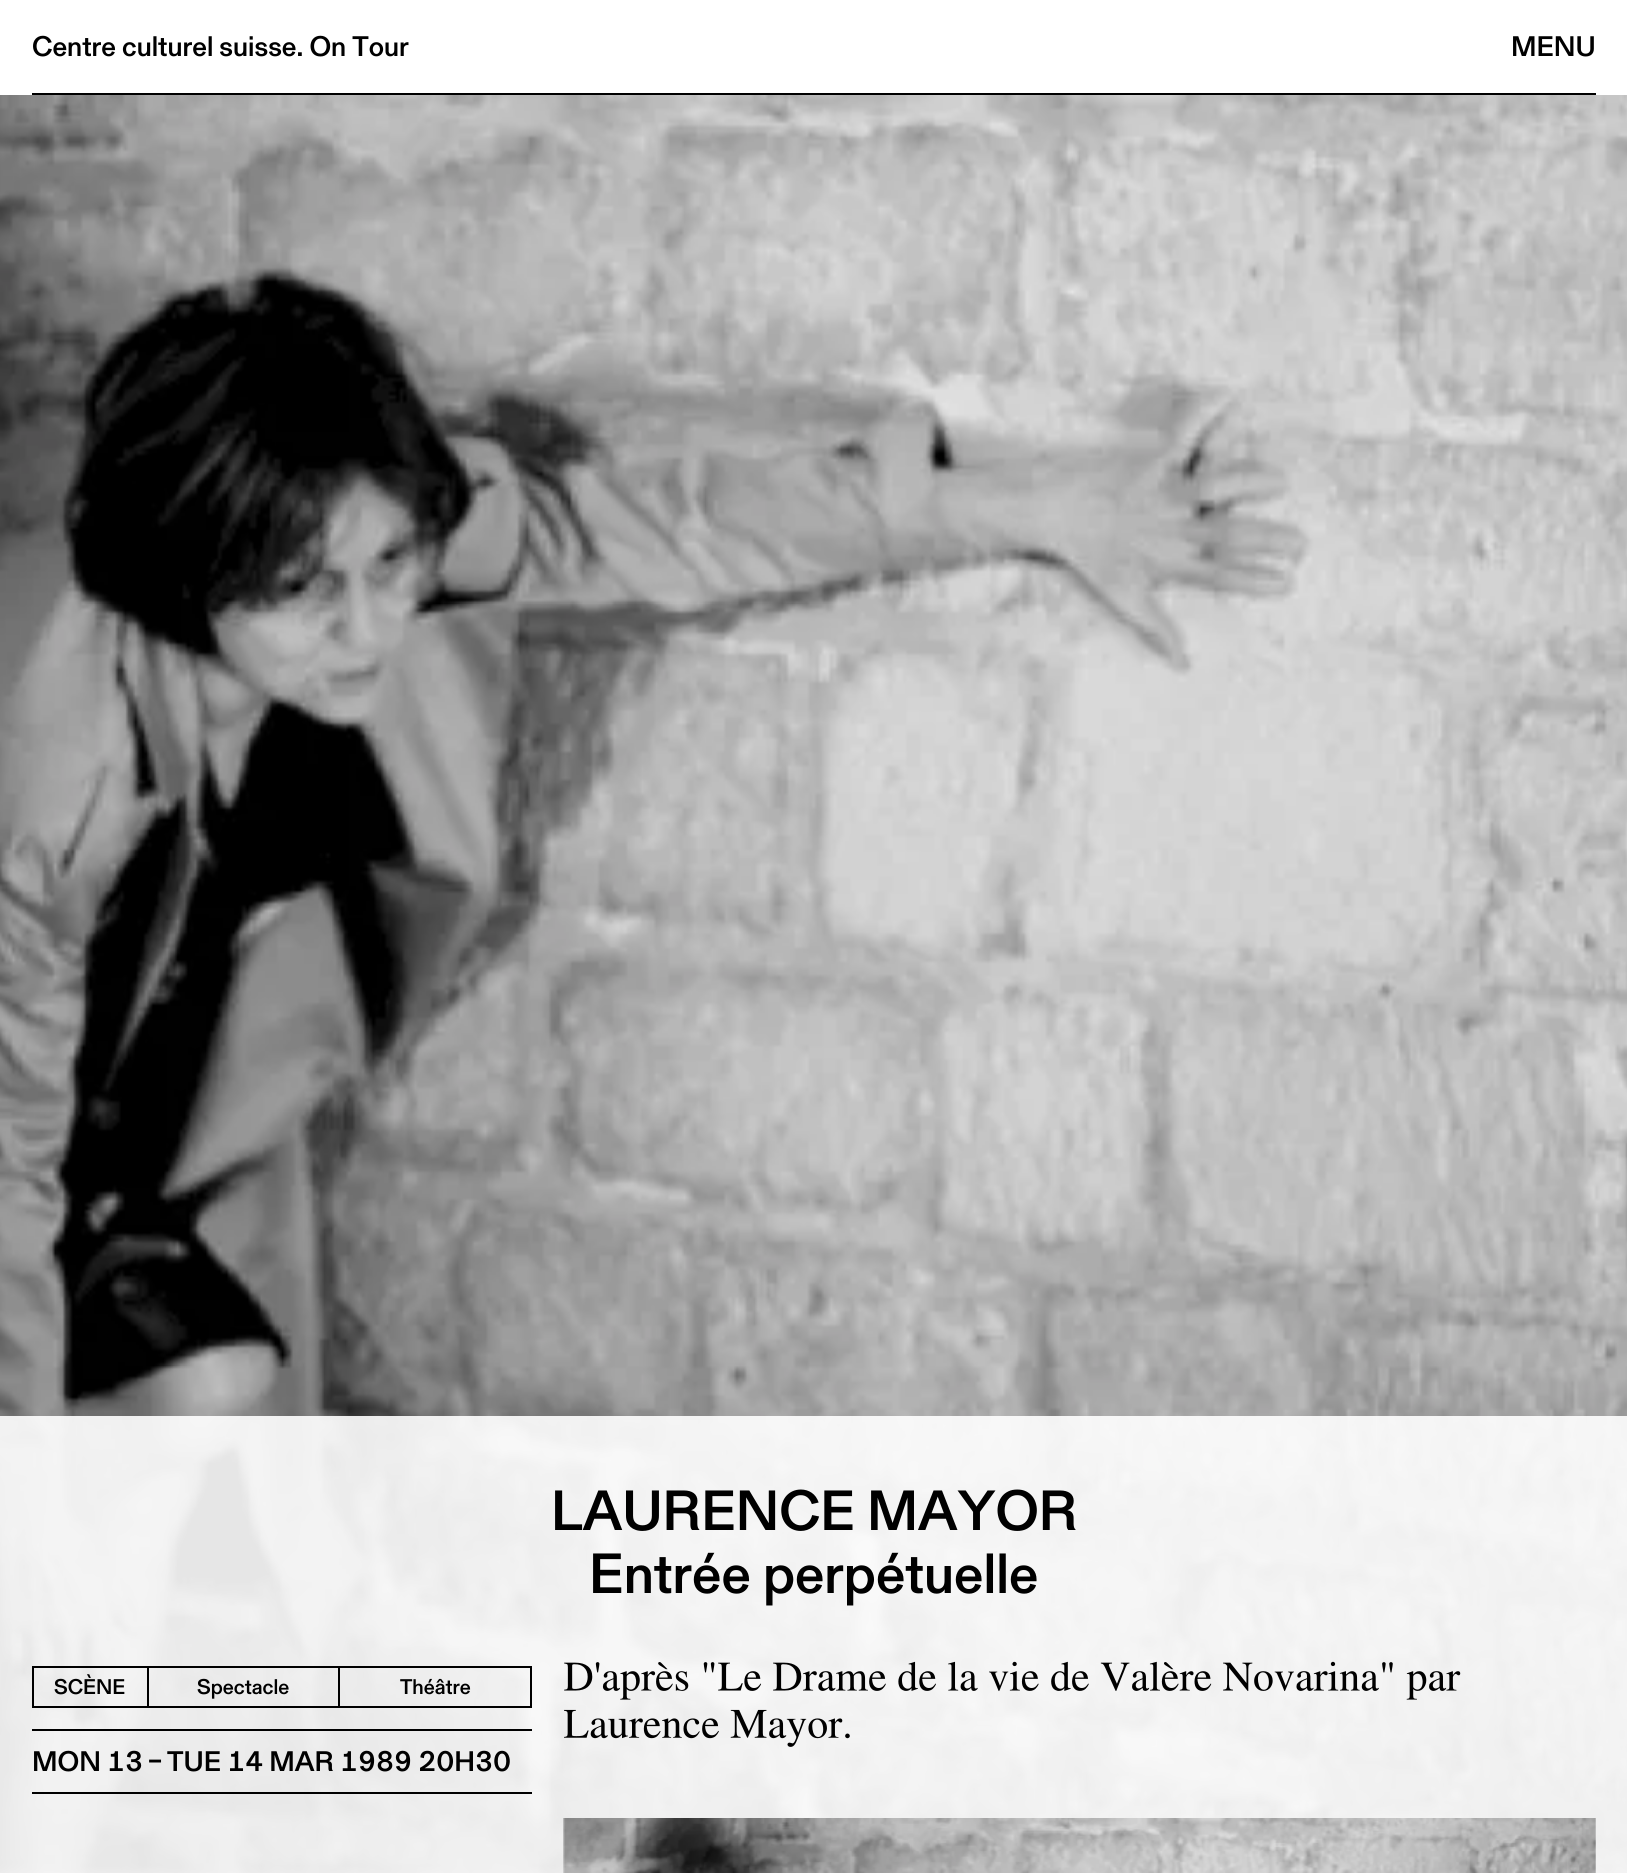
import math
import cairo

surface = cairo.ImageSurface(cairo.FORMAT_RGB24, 1627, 1873)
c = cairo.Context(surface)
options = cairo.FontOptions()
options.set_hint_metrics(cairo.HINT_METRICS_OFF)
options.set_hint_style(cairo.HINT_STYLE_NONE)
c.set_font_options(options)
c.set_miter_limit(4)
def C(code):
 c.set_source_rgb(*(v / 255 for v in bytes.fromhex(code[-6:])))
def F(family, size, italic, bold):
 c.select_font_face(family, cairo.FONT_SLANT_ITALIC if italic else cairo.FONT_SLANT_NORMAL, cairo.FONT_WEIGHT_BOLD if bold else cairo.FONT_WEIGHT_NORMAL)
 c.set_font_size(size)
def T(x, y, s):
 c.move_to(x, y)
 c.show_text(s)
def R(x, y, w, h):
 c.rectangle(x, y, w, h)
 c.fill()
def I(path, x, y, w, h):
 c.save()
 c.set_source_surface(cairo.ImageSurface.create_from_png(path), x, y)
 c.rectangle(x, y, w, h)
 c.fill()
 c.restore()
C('ffffff')
c.paint()
C('000000')
R(32,93,1564,2)
F('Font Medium',28,0,0)
T(32,56,'Centre culturel suisse. On Tour')
T(1511,56,'MENU')
I('1.png',0,95,1627,1778)
c.set_source_rgba(1,1,1,0.9)
R(0,1416,1627,457)
F('Font Medium',56,0,0)
C('000000')
T(551,1530,'LAURENCE MAYOR')
T(589,1593,'Entrée perpétuelle')
R(32,1729,500,2)
c.rectangle(33,1667,115,40)
c.stroke()
F('Font Medium',21,0,0)
T(54,1694,'SCÈNE')
c.rectangle(148,1667,191,40)
c.stroke()
T(197,1694,'Spectacle')
c.rectangle(339,1667,192,40)
c.stroke()
T(400,1694,'Théâtre')
R(32,1792,500,2)
F('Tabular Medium',28,0,0)
T(32,1771,'MON 13 – TUE 14 MAR 1989 20H30')
I('2.png',564,1661,897,39)
I('3.png',564,1709,286,38)
I('4.png',563,1818,1033,55)
surface.write_to_png('o.png')
